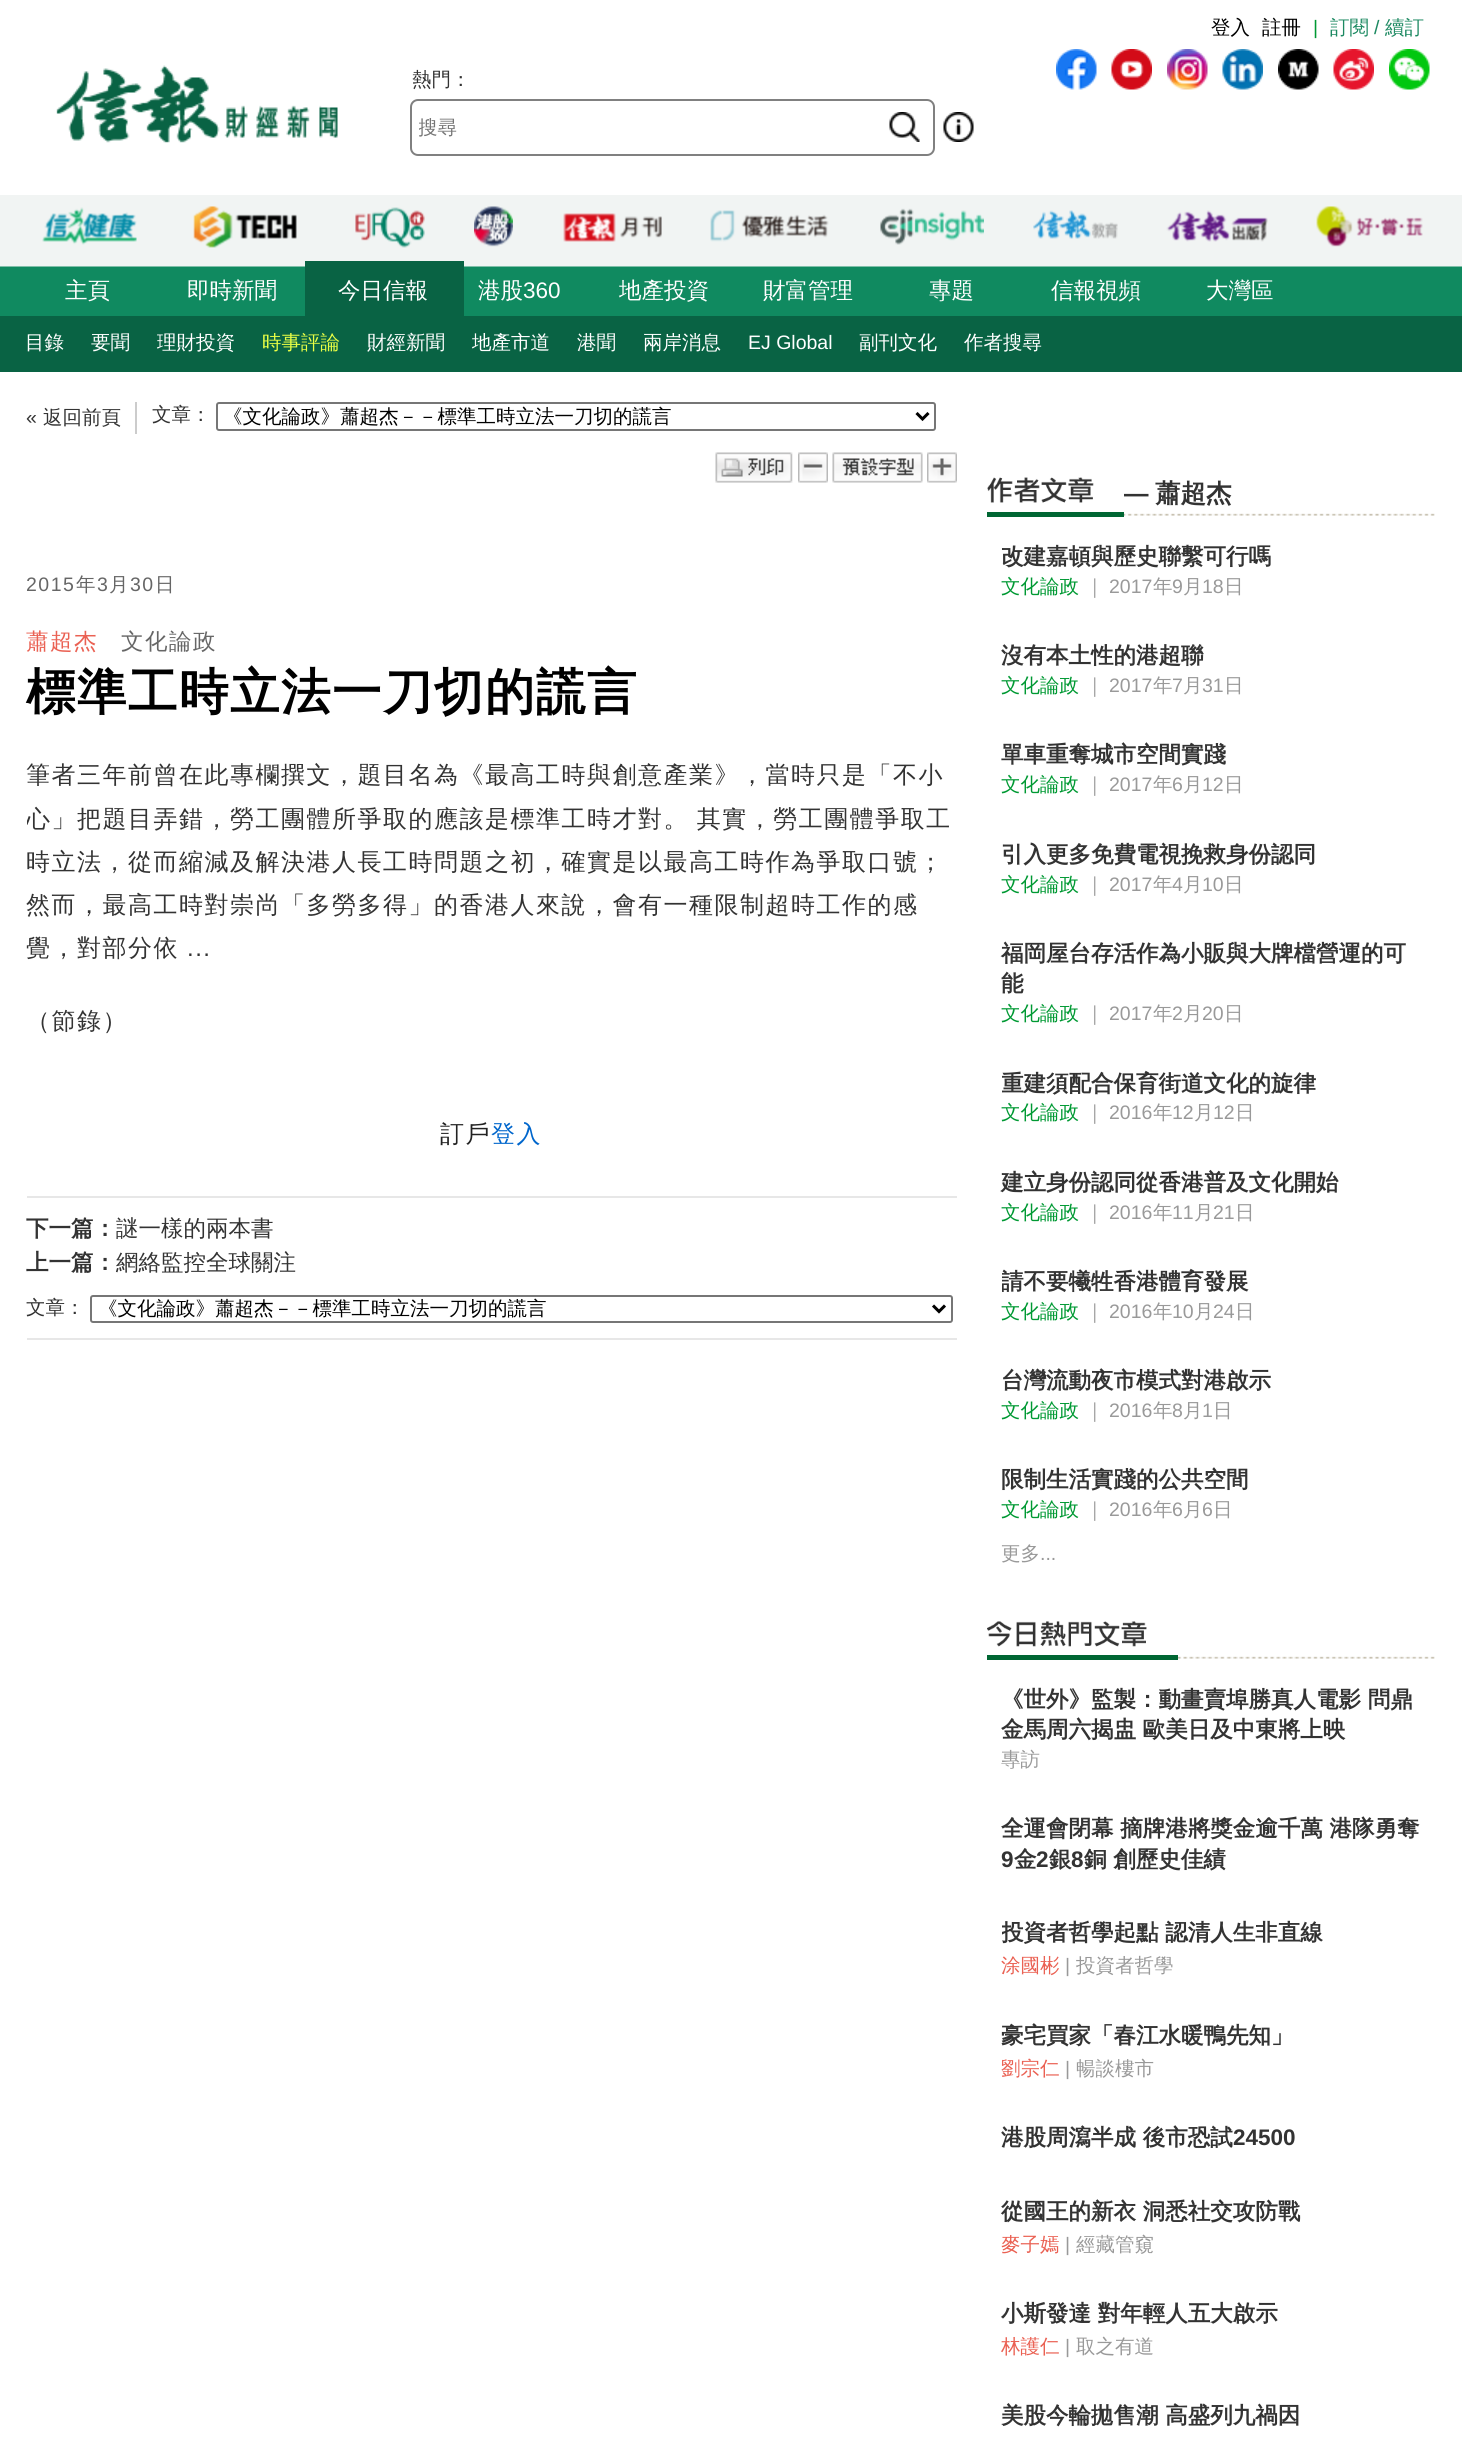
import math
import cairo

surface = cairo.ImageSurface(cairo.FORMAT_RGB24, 1462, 2437)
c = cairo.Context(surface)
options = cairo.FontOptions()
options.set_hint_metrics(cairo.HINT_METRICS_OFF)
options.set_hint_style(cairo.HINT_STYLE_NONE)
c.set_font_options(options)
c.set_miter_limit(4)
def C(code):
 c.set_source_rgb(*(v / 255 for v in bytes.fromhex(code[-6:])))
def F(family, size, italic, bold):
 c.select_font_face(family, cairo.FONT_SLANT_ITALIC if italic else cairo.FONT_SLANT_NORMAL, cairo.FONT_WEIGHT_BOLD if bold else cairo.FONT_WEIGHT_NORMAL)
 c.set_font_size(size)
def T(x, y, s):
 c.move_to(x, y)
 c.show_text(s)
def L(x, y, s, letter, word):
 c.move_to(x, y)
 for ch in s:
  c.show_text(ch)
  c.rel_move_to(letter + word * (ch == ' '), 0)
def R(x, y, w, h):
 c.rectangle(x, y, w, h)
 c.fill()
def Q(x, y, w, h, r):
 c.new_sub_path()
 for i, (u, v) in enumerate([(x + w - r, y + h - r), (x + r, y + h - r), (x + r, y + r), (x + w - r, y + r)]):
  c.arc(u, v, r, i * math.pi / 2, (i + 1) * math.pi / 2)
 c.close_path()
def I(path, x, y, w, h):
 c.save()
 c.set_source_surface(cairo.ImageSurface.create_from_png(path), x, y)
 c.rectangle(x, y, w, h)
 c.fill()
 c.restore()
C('ffffff')
c.paint()
F('WenQuanYi Zen Hei Medium',19.5,0,0)
C('000000')
T(1211,34,'登入')
T(1262,34,'註冊')
F('Liberation Sans',19.5,0,0)
C('009933')
T(1313,34,'|')
F('WenQuanYi Zen Hei Medium',19.5,0,0)
C('1c8961')
T(1330,34,'訂閱')
F('Liberation Sans',19.5,0,0)
T(1374,34,'/')
F('WenQuanYi Zen Hei Medium',19.5,0,0)
T(1385,34,'續訂')
I('1.png',56,65,282,78)
C('333333')
T(412,86,'熱門：')
Q(411,100,523,55,7)
C('808080')
c.stroke()
c.save()
c.rectangle(419,116,454,27)
c.clip()
C('757575')
T(418,134,'搜尋')
c.restore()
I('2.png',889,112,31,30)
I('3.png',943,112,31,30)
I('4.png',1056,49,41,41)
I('5.png',1111,49,41,41)
I('6.png',1167,49,41,41)
I('7.png',1222,49,41,41)
I('8.png',1278,49,41,41)
I('9.png',1333,49,41,41)
I('10.png',1389,49,41,41)
C('f1f4f3')
R(0,195,1462,66)
I('11.png',42,207,95,38)
I('12.png',193,206,104,42)
I('13.png',355,207,70,41)
I('14.png',474,206,39,41)
I('15.png',563,213,99,29)
I('16.png',710,210,119,32)
I('17.png',880,208,104,37)
I('18.png',1033,210,85,29)
I('19.png',1166,210,102,32)
I('20.png',1316,206,107,41)
I('21.png',0,261,1462,55)
F('WenQuanYi Zen Hei Medium',22.5,0,0)
C('ffffff')
T(65,298,'主頁')
T(187,298,'即時新聞')
C('096344')
R(305,261,159,55)
C('ffffff')
T(338,298,'今日信報')
T(478,298,'港股')
F('Liberation Sans',22.5,0,0)
T(523,298,'360')
F('WenQuanYi Zen Hei Medium',22.5,0,0)
T(619,298,'地產投資')
T(763,298,'財富管理')
T(929,298,'專題')
T(1051,298,'信報視頻')
T(1206,298,'大灣區')
C('096344')
R(0,316,1462,56)
F('WenQuanYi Zen Hei Medium',19.5,0,0)
C('ffffff')
T(25,349,'目錄')
T(91,349,'要聞')
T(157,349,'理財投資')
C('eaff45')
T(262,349,'時事評論')
C('ffffff')
T(367,349,'財經新聞')
T(472,349,'地產市道')
T(577,349,'港聞')
T(643,349,'兩岸消息')
F('Liberation Sans',19.5,0,0)
T(748,349,'EJ Global')
F('WenQuanYi Zen Hei Medium',19.5,0,0)
T(859,349,'副刊文化')
T(964,349,'作者搜尋')
F('Liberation Sans',19.5,0,0)
C('333333')
T(26,424,'«')
F('WenQuanYi Zen Hei Medium',19.5,0,0)
T(43,424,'返回前頁')
C('cccccc')
R(135,402,2,32)
C('333333')
T(152,421,'文章：')
Q(217,403,718,27,2)
C('767676')
c.stroke()
c.new_path()
c.move_to(916.5,413)
c.line_to(922.5,419)
c.line_to(928.5,413)
C('000000')
c.set_line_width(3)
c.stroke()
T(223,423,'《文化論政》蕭超杰－－標準工時立法一刀切的謊言')
I('22.png',715,452,78,31)
I('23.png',798,452,30,31)
I('24.png',832,452,91,31)
I('25.png',927,452,30,31)
F('Liberation Sans',19.5,0,0)
C('666666')
L(26,591,'2015',1.5,0)
F('WenQuanYi Zen Hei Medium',19.5,0,0)
L(76,591,'年',1.5,0)
F('Liberation Sans',19.5,0,0)
L(97,591,'3',1.5,0)
F('WenQuanYi Zen Hei Medium',19.5,0,0)
L(109,591,'月',1.5,0)
F('Liberation Sans',19.5,0,0)
L(130,591,'30',1.5,0)
F('WenQuanYi Zen Hei Medium',19.5,0,0)
L(155,591,'日',1.5,0)
F('WenQuanYi Zen Hei Medium',22.5,0,0)
C('ea6153')
L(26,649,'蕭超杰',1.5,0)
C('666666')
L(121,649,'文化論政',1.5,0)
F('WenQuanYi Zen Hei',49.5,0,1)
C('000000')
L(26,709,'標準工時立法一刀切的謊言',1.5,0)
F('WenQuanYi Zen Hei Medium',24,0,0)
C('333333')
L(26,783,'筆者三年前曾在此專欄撰文，題目名為《最高工時與創意產業》，當時只是「不小',1.5,0)
c.save()
c.rectangle(27,537,930,537)
c.clip()
L(26,827,'心」把題目弄錯，勞工團體所爭取的應該是標準工時才對。 其實，勞工團體爭取工',1.5,-1)
c.restore()
L(26,870,'時立法，從而縮減及解決港人長工時問題之初，確實是以最高工時作為爭取口號；',1.5,0)
L(26,913,'然而，最高工時對崇尚「多勞多得」的香港人來說，會有一種限制超時工作的感',1.5,0)
L(26,956,'覺，對部分依',1.5,0)
F('Liberation Sans',24,0,0)
L(187,956,'...',1.5,0)
F('WenQuanYi Zen Hei Medium',24,0,0)
L(26,1029,'（節錄）',1.5,0)
C('222222')
L(440,1142,'訂戶',1.5,0)
C('0066cc')
L(491,1142,'登入',1.5,0)
C('e7e7e7')
R(27,1196,930,2)
R(27,1338,930,2)
F('WenQuanYi Zen Hei',22.5,0,1)
C('333333')
T(26,1236,'下一篇：')
F('WenQuanYi Zen Hei Medium',22.5,0,0)
T(116,1236,'謎一樣的兩本書')
F('WenQuanYi Zen Hei',22.5,0,1)
T(26,1270,'上一篇：')
F('WenQuanYi Zen Hei Medium',22.5,0,0)
T(116,1270,'網絡監控全球關注')
F('WenQuanYi Zen Hei Medium',19.5,0,0)
T(26,1314,'文章：')
Q(91,1296,861,26,2)
C('767676')
c.set_line_width(2)
c.stroke()
c.new_path()
c.move_to(933,1305.5)
c.line_to(939,1311.5)
c.line_to(945,1305.5)
C('000000')
c.set_line_width(3)
c.stroke()
T(98,1315,'《文化論政》蕭超杰－－標準工時立法一刀切的謊言')
I('26.png',1124,513,311,3)
C('006633')
R(987,512,137,5)
I('27.png',987,477,107,26)
c.save()
c.rectangle(1124,477,313,39)
c.clip()
F('Liberation Sans',25.5,0,1)
C('333333')
T(1123,502,'—')
c.restore()
F('WenQuanYi Zen Hei',25.5,0,1)
C('333333')
T(1155,502,'蕭超杰')
F('WenQuanYi Zen Hei',22.5,0,1)
T(1001,564,'改建嘉頓與歷史聯繫可行嗎')
F('WenQuanYi Zen Hei Medium',19.5,0,0)
C('009933')
T(1001,593,'文化論政')
C('999999')
T(1085,593,'｜')
F('Liberation Sans',19.5,0,0)
T(1109,593,'2017')
F('WenQuanYi Zen Hei Medium',19.5,0,0)
T(1153,593,'年')
F('Liberation Sans',19.5,0,0)
T(1172,593,'9')
F('WenQuanYi Zen Hei Medium',19.5,0,0)
T(1183,593,'月')
F('Liberation Sans',19.5,0,0)
T(1202,593,'18')
F('WenQuanYi Zen Hei Medium',19.5,0,0)
T(1224,593,'日')
F('WenQuanYi Zen Hei',22.5,0,1)
C('333333')
T(1001,663,'沒有本土性的港超聯')
F('WenQuanYi Zen Hei Medium',19.5,0,0)
C('009933')
T(1001,692,'文化論政')
C('999999')
T(1085,692,'｜')
F('Liberation Sans',19.5,0,0)
T(1109,692,'2017')
F('WenQuanYi Zen Hei Medium',19.5,0,0)
T(1153,692,'年')
F('Liberation Sans',19.5,0,0)
T(1172,692,'7')
F('WenQuanYi Zen Hei Medium',19.5,0,0)
T(1183,692,'月')
F('Liberation Sans',19.5,0,0)
T(1202,692,'31')
F('WenQuanYi Zen Hei Medium',19.5,0,0)
T(1224,692,'日')
F('WenQuanYi Zen Hei',22.5,0,1)
C('333333')
T(1001,762,'單車重奪城市空間實踐')
F('WenQuanYi Zen Hei Medium',19.5,0,0)
C('009933')
T(1001,791,'文化論政')
C('999999')
T(1085,791,'｜')
F('Liberation Sans',19.5,0,0)
T(1109,791,'2017')
F('WenQuanYi Zen Hei Medium',19.5,0,0)
T(1153,791,'年')
F('Liberation Sans',19.5,0,0)
T(1172,791,'6')
F('WenQuanYi Zen Hei Medium',19.5,0,0)
T(1183,791,'月')
F('Liberation Sans',19.5,0,0)
T(1202,791,'12')
F('WenQuanYi Zen Hei Medium',19.5,0,0)
T(1224,791,'日')
F('WenQuanYi Zen Hei',22.5,0,1)
C('333333')
T(1001,862,'引入更多免費電視挽救身份認同')
F('WenQuanYi Zen Hei Medium',19.5,0,0)
C('009933')
T(1001,891,'文化論政')
C('999999')
T(1085,891,'｜')
F('Liberation Sans',19.5,0,0)
T(1109,891,'2017')
F('WenQuanYi Zen Hei Medium',19.5,0,0)
T(1153,891,'年')
F('Liberation Sans',19.5,0,0)
T(1172,891,'4')
F('WenQuanYi Zen Hei Medium',19.5,0,0)
T(1183,891,'月')
F('Liberation Sans',19.5,0,0)
T(1202,891,'10')
F('WenQuanYi Zen Hei Medium',19.5,0,0)
T(1224,891,'日')
F('WenQuanYi Zen Hei',22.5,0,1)
C('333333')
T(1001,961,'福岡屋台存活作為小販與大牌檔營運的可')
T(1001,991,'能')
F('WenQuanYi Zen Hei Medium',19.5,0,0)
C('009933')
T(1001,1020,'文化論政')
C('999999')
T(1085,1020,'｜')
F('Liberation Sans',19.5,0,0)
T(1109,1020,'2017')
F('WenQuanYi Zen Hei Medium',19.5,0,0)
T(1153,1020,'年')
F('Liberation Sans',19.5,0,0)
T(1172,1020,'2')
F('WenQuanYi Zen Hei Medium',19.5,0,0)
T(1183,1020,'月')
F('Liberation Sans',19.5,0,0)
T(1202,1020,'20')
F('WenQuanYi Zen Hei Medium',19.5,0,0)
T(1224,1020,'日')
c.save()
c.rectangle(1002,1068,420,30)
c.clip()
F('WenQuanYi Zen Hei',22.5,0,1)
C('333333')
T(1001,1091,'重建須配合保育街道文化的旋律')
c.restore()
C('009933')
T(1001,1119,'文化論政')
C('999999')
T(1085,1119,'｜')
F('Liberation Sans',19.5,0,0)
T(1109,1119,'2016')
F('WenQuanYi Zen Hei Medium',19.5,0,0)
T(1153,1119,'年')
F('Liberation Sans',19.5,0,0)
T(1172,1119,'12')
F('WenQuanYi Zen Hei Medium',19.5,0,0)
T(1194,1119,'月')
F('Liberation Sans',19.5,0,0)
T(1213,1119,'12')
F('WenQuanYi Zen Hei Medium',19.5,0,0)
T(1235,1119,'日')
F('WenQuanYi Zen Hei',22.5,0,1)
C('333333')
T(1001,1190,'建立身份認同從香港普及文化開始')
F('WenQuanYi Zen Hei Medium',19.5,0,0)
C('009933')
T(1001,1219,'文化論政')
C('999999')
T(1085,1219,'｜')
F('Liberation Sans',19.5,0,0)
T(1109,1219,'2016')
F('WenQuanYi Zen Hei Medium',19.5,0,0)
T(1153,1219,'年')
F('Liberation Sans',19.5,0,0)
T(1172,1219,'11')
F('WenQuanYi Zen Hei Medium',19.5,0,0)
T(1194,1219,'月')
F('Liberation Sans',19.5,0,0)
T(1213,1219,'21')
F('WenQuanYi Zen Hei Medium',19.5,0,0)
T(1235,1219,'日')
c.save()
c.rectangle(1002,1266,420,32)
c.clip()
F('WenQuanYi Zen Hei',22.5,0,1)
C('333333')
T(1001,1289,'請不要犧牲香港體育發展')
c.restore()
C('009933')
T(1001,1318,'文化論政')
C('999999')
T(1085,1318,'｜')
F('Liberation Sans',19.5,0,0)
T(1109,1318,'2016')
F('WenQuanYi Zen Hei Medium',19.5,0,0)
T(1153,1318,'年')
F('Liberation Sans',19.5,0,0)
T(1172,1318,'10')
F('WenQuanYi Zen Hei Medium',19.5,0,0)
T(1194,1318,'月')
F('Liberation Sans',19.5,0,0)
T(1213,1318,'24')
F('WenQuanYi Zen Hei Medium',19.5,0,0)
T(1235,1318,'日')
F('WenQuanYi Zen Hei',22.5,0,1)
C('333333')
T(1001,1388,'台灣流動夜市模式對港啟示')
F('WenQuanYi Zen Hei Medium',19.5,0,0)
C('009933')
T(1001,1417,'文化論政')
C('999999')
T(1085,1417,'｜')
F('Liberation Sans',19.5,0,0)
T(1109,1417,'2016')
F('WenQuanYi Zen Hei Medium',19.5,0,0)
T(1153,1417,'年')
F('Liberation Sans',19.5,0,0)
T(1172,1417,'8')
F('WenQuanYi Zen Hei Medium',19.5,0,0)
T(1183,1417,'月')
F('Liberation Sans',19.5,0,0)
T(1202,1417,'1')
F('WenQuanYi Zen Hei Medium',19.5,0,0)
T(1213,1417,'日')
F('WenQuanYi Zen Hei',22.5,0,1)
C('333333')
T(1001,1487,'限制生活實踐的公共空間')
F('WenQuanYi Zen Hei Medium',19.5,0,0)
C('009933')
T(1001,1516,'文化論政')
C('999999')
T(1085,1516,'｜')
F('Liberation Sans',19.5,0,0)
T(1109,1516,'2016')
F('WenQuanYi Zen Hei Medium',19.5,0,0)
T(1153,1516,'年')
F('Liberation Sans',19.5,0,0)
T(1172,1516,'6')
F('WenQuanYi Zen Hei Medium',19.5,0,0)
T(1183,1516,'月')
F('Liberation Sans',19.5,0,0)
T(1202,1516,'6')
F('WenQuanYi Zen Hei Medium',19.5,0,0)
T(1213,1516,'日')
T(1001,1560,'更多')
F('Liberation Sans',19.5,0,0)
T(1040,1560,'...')
I('28.png',1178,1656,257,3)
C('006633')
R(987,1655,191,5)
I('29.png',987,1621,160,26)
F('WenQuanYi Zen Hei',22.5,0,1)
C('333333')
T(1001,1707,'《世外》監製：動畫賣埠勝真人電影 問鼎')
T(1001,1737,'金馬周六揭盅 歐美日及中東將上映')
F('WenQuanYi Zen Hei Medium',19.5,0,0)
C('999999')
T(1001,1766,'專訪')
F('WenQuanYi Zen Hei',22.5,0,1)
C('333333')
T(1001,1836,'全運會閉幕 摘牌港將獎金逾千萬 港隊勇奪')
F('Liberation Sans',22.5,0,1)
T(1001,1867,'9')
F('WenQuanYi Zen Hei',22.5,0,1)
T(1014,1867,'金')
F('Liberation Sans',22.5,0,1)
T(1036,1867,'2')
F('WenQuanYi Zen Hei',22.5,0,1)
T(1049,1867,'銀')
F('Liberation Sans',22.5,0,1)
T(1071,1867,'8')
F('WenQuanYi Zen Hei',22.5,0,1)
T(1084,1867,'銅 創歷史佳績')
c.save()
c.rectangle(1002,1919,420,30)
c.clip()
T(1001,1940,'投資者哲學起點 認清人生非直線')
c.restore()
F('WenQuanYi Zen Hei Medium',19.5,0,0)
C('ea6153')
T(1001,1972,'涂國彬')
F('Liberation Sans',19.5,0,0)
C('999999')
T(1065,1972,'|')
F('WenQuanYi Zen Hei Medium',19.5,0,0)
T(1076,1972,'投資者哲學')
F('WenQuanYi Zen Hei',22.5,0,1)
C('333333')
T(1001,2043,'豪宅買家「春江水暖鴨先知」')
F('WenQuanYi Zen Hei Medium',19.5,0,0)
C('ea6153')
T(1001,2075,'劉宗仁')
F('Liberation Sans',19.5,0,0)
C('999999')
T(1065,2075,'|')
F('WenQuanYi Zen Hei Medium',19.5,0,0)
T(1076,2075,'暢談樓市')
F('WenQuanYi Zen Hei',22.5,0,1)
C('333333')
T(1001,2145,'港股周瀉半成 後市恐試')
F('Liberation Sans',22.5,0,1)
T(1233,2145,'24500')
F('WenQuanYi Zen Hei',22.5,0,1)
T(1001,2219,'從國王的新衣 洞悉社交攻防戰')
F('WenQuanYi Zen Hei Medium',19.5,0,0)
C('ea6153')
T(1001,2251,'麥子嫣')
F('Liberation Sans',19.5,0,0)
C('999999')
T(1065,2251,'|')
F('WenQuanYi Zen Hei Medium',19.5,0,0)
T(1076,2251,'經藏管窺')
F('WenQuanYi Zen Hei',22.5,0,1)
C('333333')
T(1001,2321,'小斯發達 對年輕人五大啟示')
F('WenQuanYi Zen Hei Medium',19.5,0,0)
C('ea6153')
T(1001,2353,'林護仁')
F('Liberation Sans',19.5,0,0)
C('999999')
T(1065,2353,'|')
F('WenQuanYi Zen Hei Medium',19.5,0,0)
T(1076,2353,'取之有道')
F('WenQuanYi Zen Hei',22.5,0,1)
C('333333')
T(1001,2423,'美股今輪拋售潮 高盛列九禍因')
surface.write_to_png('o.png')
